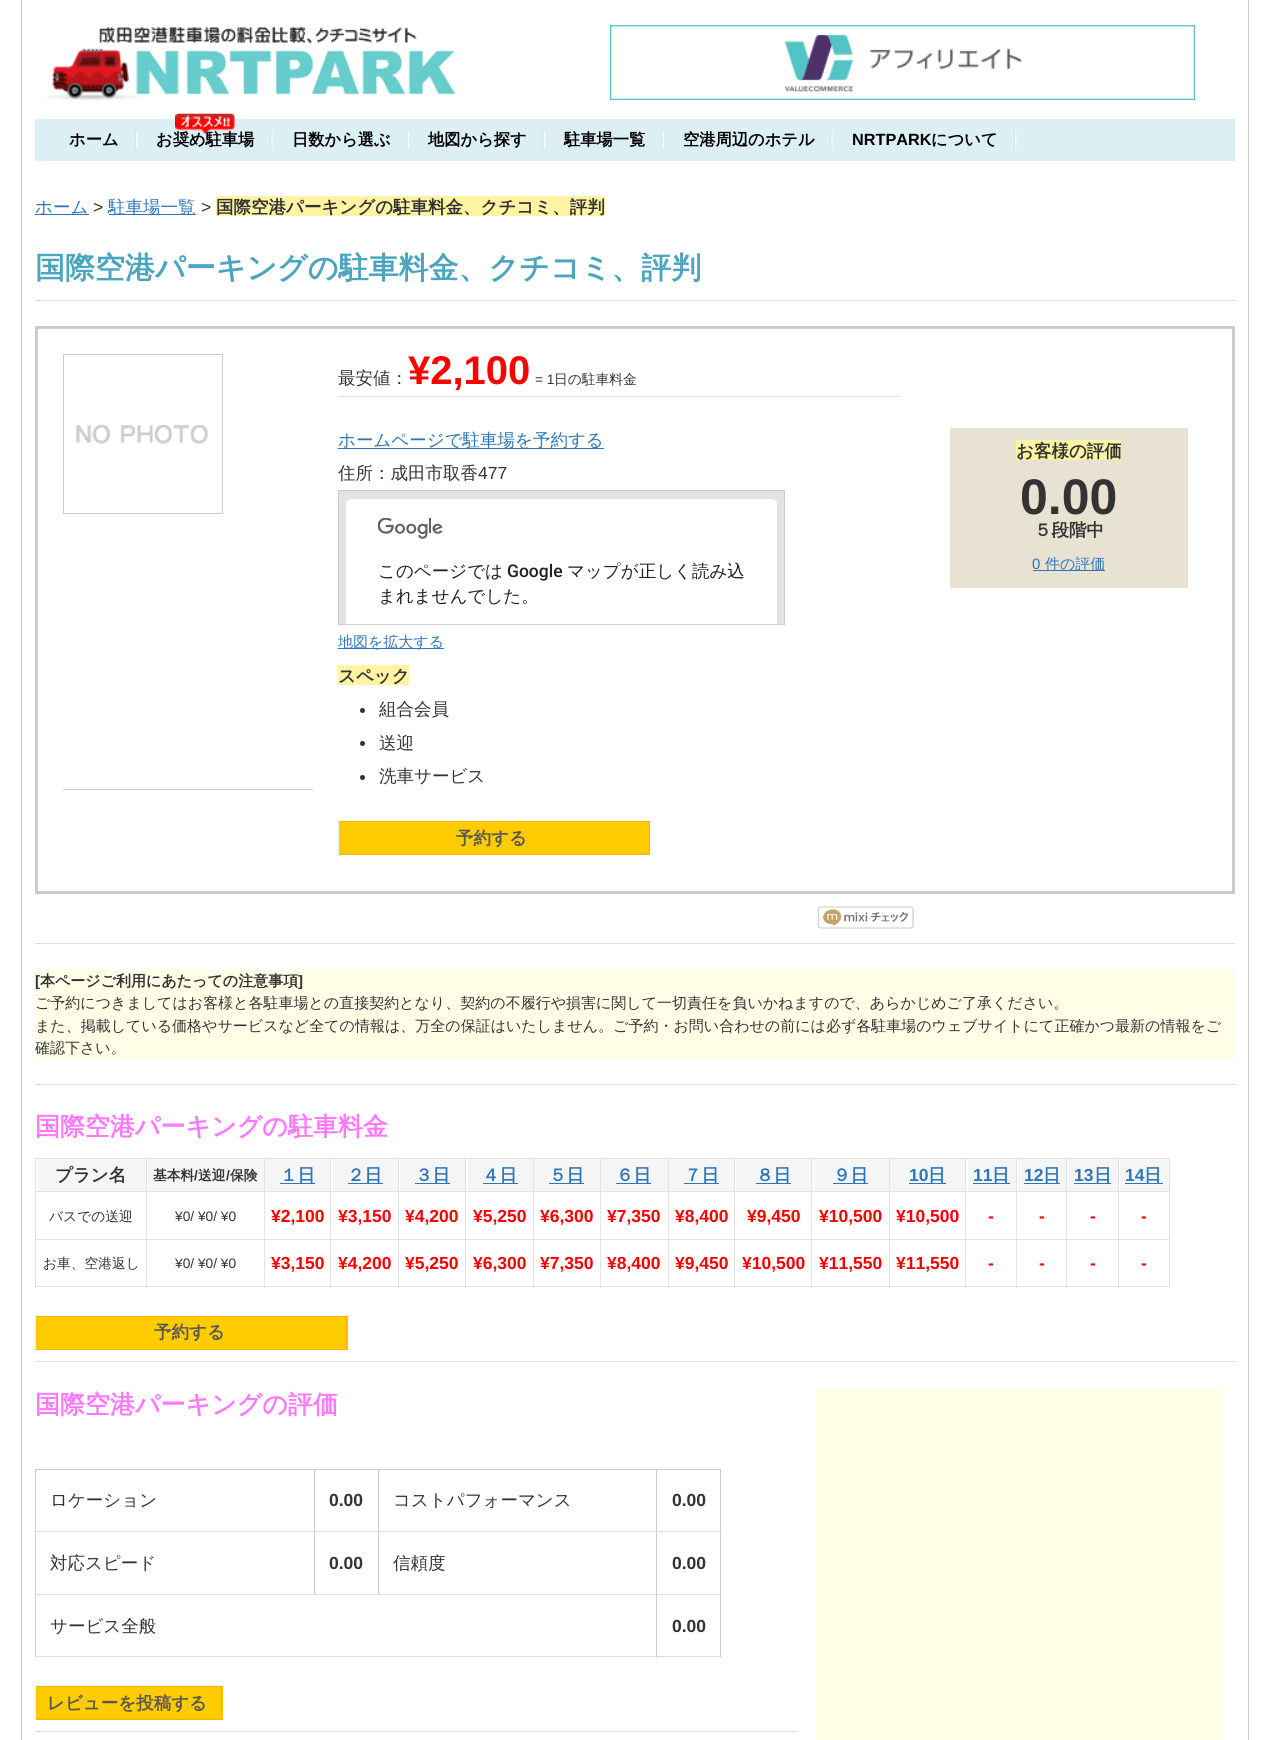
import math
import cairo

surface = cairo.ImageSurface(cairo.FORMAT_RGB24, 1270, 1740)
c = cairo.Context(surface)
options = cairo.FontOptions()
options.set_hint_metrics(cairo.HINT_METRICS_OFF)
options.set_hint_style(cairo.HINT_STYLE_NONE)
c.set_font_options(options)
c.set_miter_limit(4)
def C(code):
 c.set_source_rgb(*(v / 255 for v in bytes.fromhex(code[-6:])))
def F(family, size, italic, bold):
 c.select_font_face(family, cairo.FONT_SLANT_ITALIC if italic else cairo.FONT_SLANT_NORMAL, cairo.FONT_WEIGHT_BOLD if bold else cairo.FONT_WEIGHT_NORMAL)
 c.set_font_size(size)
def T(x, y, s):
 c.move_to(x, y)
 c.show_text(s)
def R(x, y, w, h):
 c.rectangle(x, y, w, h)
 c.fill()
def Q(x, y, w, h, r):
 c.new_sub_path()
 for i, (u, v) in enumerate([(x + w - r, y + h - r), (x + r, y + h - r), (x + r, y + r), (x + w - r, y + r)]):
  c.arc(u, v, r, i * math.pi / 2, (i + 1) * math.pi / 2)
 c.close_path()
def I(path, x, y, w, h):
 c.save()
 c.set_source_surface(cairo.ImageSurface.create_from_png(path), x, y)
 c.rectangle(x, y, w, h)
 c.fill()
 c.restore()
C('ffffff')
c.paint()
C('cccccc')
R(1248,0,1,1740)
R(21,0,1,1740)
I('1.png',45,26,411,75)
I('2.png',610,25,585,75)
C('dceff5')
R(35,119,1200,42)
I('3.png',175,113,60,21)
I('4.png',135,130,3,20)
F('WenQuanYi Zen Hei',16.25,0,1)
C('000000')
T(69,145,'ホーム')
I('4.png',270,130,3,20)
T(156,145,'お奨め駐車場')
I('5.png',406,130,3,20)
T(292,145,'日数から選ぶ')
I('6.png',542,130,3,20)
T(428,145,'地図から探す')
I('5.png',661,130,3,20)
T(564,145,'駐車場一覧')
I('4.png',830,130,3,20)
T(683,145,'空港周辺のホテル')
I('7.png',1013,130,4,20)
F('Liberation Sans',16.25,0,1)
T(852,145,'NRTPARK')
F('WenQuanYi Zen Hei',16.25,0,1)
T(931,145,'について')
C('2d76b9')
R(35,214,54,1)
F('WenQuanYi Zen Hei Medium',17.5,0,0)
T(35,213,'ホーム')
F('Liberation Sans',17.5,0,0)
C('333333')
T(93,213,'>')
C('2d76b9')
R(109,214,87,1)
F('WenQuanYi Zen Hei Medium',17.5,0,0)
T(108,213,'駐車場一覧')
F('Liberation Sans',17.5,0,0)
C('333333')
T(201,213,'>')
C('fff4a4')
R(216,196,389,20)
F('WenQuanYi Zen Hei',17.5,0,1)
C('333333')
T(216,213,'国際空港パーキングの駐車料金、クチコミ、評判')
F('WenQuanYi Zen Hei',30,0,1)
C('4ca5c0')
T(35,278,'国際空港パーキングの駐車料金、クチコミ、評判')
C('dddddd')
R(35,300,1200,1)
c.rectangle(36.5,327.5,1197,565)
C('cccccc')
c.set_line_width(3)
c.stroke()
c.rectangle(63.5,354.5,159,159)
c.set_line_width(1)
c.stroke()
I('8.png',76,424,133,20)
R(63,789,250,1)
F('WenQuanYi Zen Hei Medium',17.5,0,0)
C('333333')
T(338,384,'最安値：')
F('Liberation Sans',40,0,1)
C('ff0000')
T(408,384,'¥2,100')
F('Liberation Sans',13.75,0,0)
C('333333')
T(535,384,'= 1')
F('WenQuanYi Zen Hei Medium',13.75,0,0)
T(554,384,'日の駐車料金')
C('dddddd')
R(338,396,562,1)
C('2d76b9')
R(338,448,266,1)
F('WenQuanYi Zen Hei Medium',17.5,0,0)
T(338,446,'ホームページで駐車場を予約する')
C('333333')
T(338,479,'住所：成田市取香')
F('Liberation Sans',17.5,0,0)
T(478,479,'477')
c.rectangle(338.5,490.5,446,134)
C('cccccc')
c.stroke()
C('e5e3df')
R(339,491,445,133)
C('ffffff')
c.new_path()
c.move_to(351,498)
c.line_to(772,498)
c.curve_to(775.5,498,778,500.5,778,504)
c.line_to(778,624)
c.line_to(345,624)
c.line_to(345,504)
c.curve_to(345,500.5,347.5,498,351,498)
c.close_path()
c.fill()
C('2d76b9')
R(338,648,106,1)
F('WenQuanYi Zen Hei Medium',15,0,0)
T(338,647,'地図を拡大する')
C('fff4a4')
R(338,665,71,20)
F('WenQuanYi Zen Hei',17.5,0,1)
C('333333')
T(338,682,'スペック')
c.new_path()
c.arc(362.5,710.5,2.5,0,2 * math.pi)
c.fill()
c.arc(362.5,743.5,2.5,0,2 * math.pi)
c.fill()
c.save()
c.rectangle(339,491,445,133)
c.clip()
Q(345.5,498.5,432,262,5.5)
c.set_source_rgba(0,0,0,0.12)
c.stroke()
c.restore()
I('9.png',378,518,65,21)
F('WenQuanYi Zen Hei Medium',17.5,0,0)
C('212121')
T(378,577,'このページでは')
F('Roboto Medium',17.5,0,0)
T(507,577,'Google')
F('WenQuanYi Zen Hei Medium',17.5,0,0)
T(567,577,'マップが正しく読み込')
T(378,602,'まれませんでした。')
C('333333')
T(379,715,'組合会員')
T(379,749,'送迎')
c.new_path()
c.arc(362.5,777.5,2.5,0,2 * math.pi)
c.fill()
T(379,782,'洗車サービス')
C('ffcc00')
R(339,822,310,32)
C('ffaf00')
R(338,821,312,1)
R(649,821,1,34)
R(338,854,312,1)
C('eeeeee')
R(338,821,1,34)
F('WenQuanYi Zen Hei',17.5,0,1)
C('565656')
T(456,844,'予約する')
C('e8e2d2')
R(950,428,238,160)
C('fff4a4')
R(1016,440,105,20)
C('333333')
T(1016,457,'お客様の評価')
F('Liberation Sans',50,0,1)
T(1020,514,'0.00')
F('WenQuanYi Zen Hei',17.5,0,1)
T(1034,536,'５段階中')
F('Liberation Sans',15,0,0)
C('2d76b9')
T(1032,569,'0')
R(1033,570,72,1)
F('WenQuanYi Zen Hei Medium',15,0,0)
T(1045,569,'件の評価')
I('10.png',817,906,97,23)
C('dddddd')
R(35,943,1200,1)
C('ffffe8')
R(35,970,1200,90)
F('Liberation Sans',15,0,1)
C('333333')
T(35,986,'[')
F('WenQuanYi Zen Hei',15,0,1)
T(40,986,'本ページご利用にあたっての注意事項')
F('Liberation Sans',15,0,1)
T(298,986,']')
F('WenQuanYi Zen Hei Medium',15,0,0)
T(35,1008,'ご予約につきましてはお客様と各駐車場との直接契約となり、契約の不履行や損害に関して一切責任を負いかねますので、あらかじめご了承ください。')
T(35,1031,'また、掲載している価格やサービスなど全ての情報は、万全の保証はいたしません。ご予約・お問い合わせの前には必ず各駐車場のウェブサイトにて正確かつ最新の情報をご')
T(35,1053,'確認下さい。')
C('dddddd')
R(35,1084,1200,1)
F('WenQuanYi Zen Hei',25,0,1)
C('ff79ff')
T(35,1135,'国際空港パーキングの駐車料金')
C('e3e3e3')
R(35,1158,1135,1)
R(1169,1158,1,130)
R(35,1286,1135,1)
R(35,1158,1,130)
C('f5f5f5')
R(38,1159,108,32)
C('e3e3e3')
R(1118,1239,1,49)
R(1118,1239,52,1)
R(1118,1191,1,49)
R(1118,1191,52,1)
R(1118,1158,1,35)
R(1066,1239,1,49)
R(1066,1239,53,1)
R(1066,1191,1,49)
R(1066,1191,53,1)
C('f5f5f5')
R(1018,1159,50,32)
C('e3e3e3')
R(1066,1158,1,35)
R(1016,1239,1,49)
R(1016,1239,52,1)
R(1016,1191,1,49)
R(1016,1191,52,1)
R(1016,1158,1,35)
R(965,1239,1,49)
R(965,1239,53,1)
R(965,1191,1,49)
R(965,1191,53,1)
R(965,1158,1,35)
R(889,1239,1,49)
R(889,1239,77,1)
R(889,1191,1,49)
R(889,1191,77,1)
R(889,1158,1,35)
R(811,1239,1,49)
R(811,1239,79,1)
R(811,1191,1,49)
R(811,1191,79,1)
C('f5f5f5')
R(736,1159,77,32)
C('e3e3e3')
R(811,1158,1,35)
R(734,1239,1,49)
R(734,1239,79,1)
R(734,1191,1,49)
R(734,1191,79,1)
R(734,1158,1,35)
R(668,1239,1,49)
R(668,1239,67,1)
R(668,1191,1,49)
R(668,1191,67,1)
R(668,1158,1,35)
R(600,1239,1,49)
R(600,1239,69,1)
R(600,1191,1,49)
R(600,1191,69,1)
R(600,1158,1,35)
R(533,1239,1,49)
R(533,1239,68,1)
R(533,1191,1,49)
R(533,1191,68,1)
R(533,1158,1,35)
R(465,1239,1,49)
R(465,1239,69,1)
R(465,1191,1,49)
R(465,1191,69,1)
R(465,1158,1,35)
R(398,1239,1,49)
R(398,1239,68,1)
R(398,1191,1,49)
R(398,1191,68,1)
R(398,1158,1,35)
R(330,1239,1,49)
R(330,1239,69,1)
R(330,1191,1,49)
R(330,1191,69,1)
R(330,1158,1,35)
R(264,1239,1,49)
R(264,1239,67,1)
R(264,1191,1,49)
R(264,1191,67,1)
R(264,1158,1,35)
R(146,1239,1,49)
R(146,1239,119,1)
R(146,1191,1,49)
R(146,1191,119,1)
R(146,1158,1,35)
R(35,1191,113,1)
F('WenQuanYi Zen Hei',17.5,0,1)
C('333333')
T(55,1181,'プラン名')
C('f5f5f5')
R(148,1159,116,32)
F('WenQuanYi Zen Hei',13.75,0,1)
C('333333')
T(153,1180,'基本料')
F('Liberation Sans',13.75,0,1)
T(194,1180,'/')
F('WenQuanYi Zen Hei',13.75,0,1)
T(198,1180,'送迎')
F('Liberation Sans',13.75,0,1)
T(226,1180,'/')
F('WenQuanYi Zen Hei',13.75,0,1)
T(230,1180,'保険')
C('f5f5f5')
R(265,1159,65,32)
C('2d76b9')
R(280,1183,35,1)
F('WenQuanYi Zen Hei',17.5,0,1)
T(280,1181,'１日')
C('f5f5f5')
R(333,1159,65,32)
C('2d76b9')
R(348,1183,35,1)
T(347,1181,'２日')
C('f5f5f5')
R(400,1159,65,32)
C('2d76b9')
R(415,1183,35,1)
T(415,1181,'３日')
C('f5f5f5')
R(468,1159,65,32)
C('2d76b9')
R(483,1183,35,1)
T(482,1181,'４日')
C('f5f5f5')
R(534,1159,66,32)
C('2d76b9')
R(549,1183,35,1)
T(549,1181,'５日')
C('f5f5f5')
R(601,1159,67,32)
C('2d76b9')
R(616,1183,35,1)
T(616,1181,'６日')
C('f5f5f5')
R(669,1159,65,32)
C('2d76b9')
R(684,1183,35,1)
T(684,1181,'７日')
R(756,1183,35,1)
T(756,1181,'８日')
C('f5f5f5')
R(814,1159,75,32)
C('2d76b9')
R(833,1183,35,1)
T(833,1181,'９日')
C('f5f5f5')
R(890,1159,75,32)
F('Liberation Sans',17.5,0,1)
C('2d76b9')
T(909,1181,'10')
R(909,1183,37,1)
F('WenQuanYi Zen Hei',17.5,0,1)
T(928,1181,'日')
C('f5f5f5')
R(968,1159,48,32)
F('Liberation Sans',17.5,0,1)
C('2d76b9')
T(973,1181,'11')
R(973,1183,37,1)
F('WenQuanYi Zen Hei',17.5,0,1)
T(992,1181,'日')
F('Liberation Sans',17.5,0,1)
T(1024,1181,'12')
R(1024,1183,36,1)
F('WenQuanYi Zen Hei',17.5,0,1)
T(1043,1181,'日')
C('f5f5f5')
R(1069,1159,49,32)
F('Liberation Sans',17.5,0,1)
C('2d76b9')
T(1074,1181,'13')
R(1074,1183,37,1)
F('WenQuanYi Zen Hei',17.5,0,1)
T(1094,1181,'日')
C('f5f5f5')
R(1120,1159,49,32)
F('Liberation Sans',17.5,0,1)
C('2d76b9')
T(1125,1181,'14')
R(1125,1183,38,1)
F('WenQuanYi Zen Hei',17.5,0,1)
T(1144,1181,'日')
C('e3e3e3')
R(35,1239,113,1)
F('WenQuanYi Zen Hei Medium',13.75,0,0)
C('333333')
T(49,1221,'バスでの送迎')
F('Liberation Sans',13.75,0,0)
T(175,1221,'¥0/ ¥0/ ¥0')
F('Liberation Sans',17.5,0,1)
C('ff0000')
T(271,1222,'¥2,100')
T(338,1222,'¥3,150')
T(405,1222,'¥4,200')
T(473,1222,'¥5,250')
T(540,1222,'¥6,300')
T(607,1222,'¥7,350')
T(675,1222,'¥8,400')
T(747,1222,'¥9,450')
T(819,1222,'¥10,500')
T(896,1222,'¥10,500')
T(988,1222,'-')
T(1039,1222,'-')
T(1090,1222,'-')
T(1141,1222,'-')
F('WenQuanYi Zen Hei Medium',13.75,0,0)
C('333333')
T(43,1268,'お車、空港返し')
F('Liberation Sans',13.75,0,0)
T(175,1268,'¥0/ ¥0/ ¥0')
F('Liberation Sans',17.5,0,1)
C('ff0000')
T(271,1269,'¥3,150')
T(338,1269,'¥4,200')
T(405,1269,'¥5,250')
T(473,1269,'¥6,300')
T(540,1269,'¥7,350')
T(607,1269,'¥8,400')
T(675,1269,'¥9,450')
T(742,1269,'¥10,500')
T(819,1269,'¥11,550')
T(896,1269,'¥11,550')
T(988,1269,'-')
T(1039,1269,'-')
T(1090,1269,'-')
T(1141,1269,'-')
C('ffcc00')
R(36,1317,312,32)
C('ffaf00')
R(35,1316,313,1)
R(346,1316,1,34)
R(35,1349,313,1)
C('eeeeee')
R(35,1316,1,34)
F('WenQuanYi Zen Hei',17.5,0,1)
C('565656')
T(154,1338,'予約する')
C('dddddd')
R(35,1361,1200,1)
F('WenQuanYi Zen Hei',25,0,1)
C('ff79ff')
T(35,1413,'国際空港パーキングの評価')
C('cccccc')
R(35,1469,686,1)
R(35,1469,1,189)
R(720,1469,1,189)
C('dddddd')
R(656,1656,65,1)
C('cccccc')
R(656,1594,1,64)
C('dddddd')
R(656,1594,65,1)
C('cccccc')
R(656,1531,1,64)
C('dddddd')
R(656,1531,65,1)
C('cccccc')
R(656,1469,1,64)
C('dddddd')
R(378,1594,280,1)
C('cccccc')
R(378,1531,1,64)
C('dddddd')
R(378,1531,280,1)
C('cccccc')
R(378,1469,1,64)
C('dddddd')
R(314,1594,65,1)
C('cccccc')
R(314,1531,1,64)
C('dddddd')
R(314,1531,65,1)
C('cccccc')
R(314,1469,1,64)
C('dddddd')
R(35,1531,280,1)
F('WenQuanYi Zen Hei Medium',17.5,0,0)
C('333333')
T(50,1506,'ロケーション')
F('Liberation Sans',17.5,0,1)
T(329,1506,'0.00')
F('WenQuanYi Zen Hei Medium',17.5,0,0)
T(393,1506,'コストパフォーマンス')
F('Liberation Sans',17.5,0,1)
T(672,1506,'0.00')
C('dddddd')
R(35,1594,280,1)
F('WenQuanYi Zen Hei Medium',17.5,0,0)
C('333333')
T(50,1569,'対応スピード')
F('Liberation Sans',17.5,0,1)
T(329,1569,'0.00')
F('WenQuanYi Zen Hei Medium',17.5,0,0)
T(393,1569,'信頼度')
F('Liberation Sans',17.5,0,1)
T(672,1569,'0.00')
C('dddddd')
R(35,1656,623,1)
F('WenQuanYi Zen Hei Medium',17.5,0,0)
C('333333')
T(50,1632,'サービス全般')
F('Liberation Sans',17.5,0,1)
T(672,1632,'0.00')
C('ffcc00')
R(36,1687,187,32)
C('ffaf00')
R(35,1686,188,1)
R(221,1686,1,34)
R(35,1719,188,1)
C('eeeeee')
R(35,1686,1,34)
F('WenQuanYi Zen Hei',17.5,0,1)
C('565656')
T(47,1709,'レビューを投稿する')
C('dddddd')
R(35,1731,763,1)
C('ffffe8')
R(816,1388,407,352)
surface.write_to_png('o.png')
